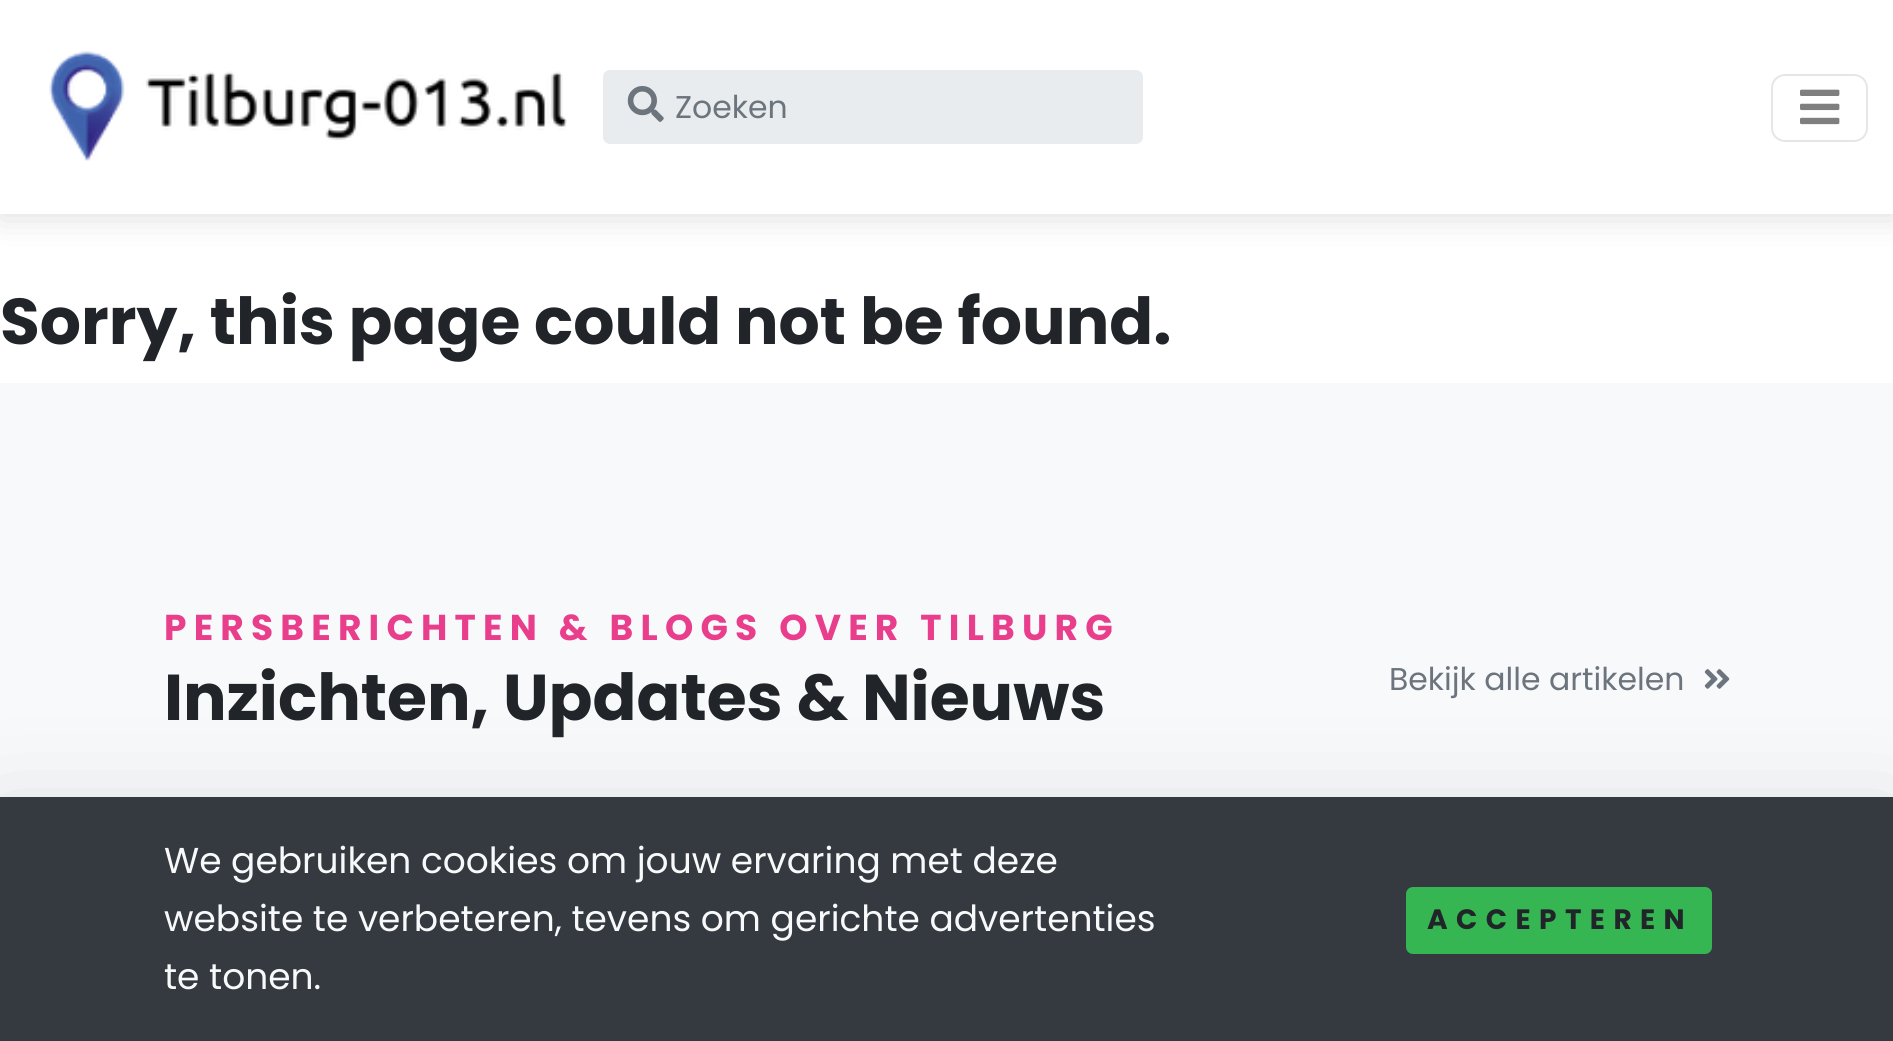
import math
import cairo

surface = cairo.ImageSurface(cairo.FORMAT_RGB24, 1893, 1041)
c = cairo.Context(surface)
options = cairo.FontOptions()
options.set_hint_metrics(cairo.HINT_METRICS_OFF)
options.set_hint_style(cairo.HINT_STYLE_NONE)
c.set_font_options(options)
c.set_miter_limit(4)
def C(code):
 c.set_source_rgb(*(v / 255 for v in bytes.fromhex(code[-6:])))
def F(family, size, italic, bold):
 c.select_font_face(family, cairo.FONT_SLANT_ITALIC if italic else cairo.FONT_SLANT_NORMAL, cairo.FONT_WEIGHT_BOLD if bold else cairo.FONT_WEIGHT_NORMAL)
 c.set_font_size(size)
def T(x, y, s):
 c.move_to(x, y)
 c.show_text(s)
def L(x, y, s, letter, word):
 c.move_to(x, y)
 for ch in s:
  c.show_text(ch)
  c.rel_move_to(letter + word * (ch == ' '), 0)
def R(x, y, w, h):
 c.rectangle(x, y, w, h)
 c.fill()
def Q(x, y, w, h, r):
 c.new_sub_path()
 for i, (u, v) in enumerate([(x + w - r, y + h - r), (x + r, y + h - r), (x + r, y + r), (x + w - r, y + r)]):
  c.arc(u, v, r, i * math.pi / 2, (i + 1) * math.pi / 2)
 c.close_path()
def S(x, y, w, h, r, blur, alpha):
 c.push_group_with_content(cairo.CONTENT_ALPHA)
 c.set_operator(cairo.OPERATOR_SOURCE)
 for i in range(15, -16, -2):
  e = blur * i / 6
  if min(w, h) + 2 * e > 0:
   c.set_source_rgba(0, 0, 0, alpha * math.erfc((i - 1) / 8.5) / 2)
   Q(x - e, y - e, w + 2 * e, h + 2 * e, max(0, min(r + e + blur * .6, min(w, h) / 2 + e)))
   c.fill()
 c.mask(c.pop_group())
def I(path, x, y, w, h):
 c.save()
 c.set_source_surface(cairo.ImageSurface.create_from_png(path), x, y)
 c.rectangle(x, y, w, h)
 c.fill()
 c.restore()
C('ffffff')
c.paint()
C('000000')
S(0,0,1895,214,0,18,.15)
C('ffffff')
R(0,0,1893,214)
I('1.png',49,51,518,110)
C('e9ecef')
Q(603,70,540,74,7)
c.fill()
I('2.png',627,86,37,36)
F('Poppins',31.5,0,0)
C('6c757d')
T(675,118,'Zoeken')
Q(1772,75,95,66,13)
C('e6e6e6')
c.stroke()
I('3.png',1800,89,40,36)
F('Poppins',64.75,0,1)
C('212529')
T(0,344,'Sorry, this page could not be found.')
C('f8f9fa')
R(0,383,1893,414)
F('Poppins',36,0,1)
C('e83e8c')
L(164,640,'PERSBERICHTEN & BLOGS OVER TILBURG',7.2,0)
F('Poppins',64.75,0,1)
C('212529')
T(164,720,'Inzichten, Updates & Nieuws')
F('Poppins',31.5,0,0)
C('6c757d')
T(1389,690,'Bekijk alle artikelen')
I('4.png',1704,669,26,20)
C('000000')
S(0,833,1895,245,0,54,.18)
C('343a40')
R(0,797,1893,244)
F('Poppins',36,0,0)
C('f8f9fa')
T(164,873,'We gebruiken cookies om jouw ervaring met deze')
T(164,931,'website te verbeteren, tevens om gerichte advertenties')
T(164,989,'te tonen.')
C('35b653')
Q(1407,888,304,65,6)
c.fill_preserve()
c.stroke()
F('Poppins',28,0,1)
C('212529')
L(1427,929,'ACCEPTEREN',8.4,0)
surface.write_to_png('o.png')
